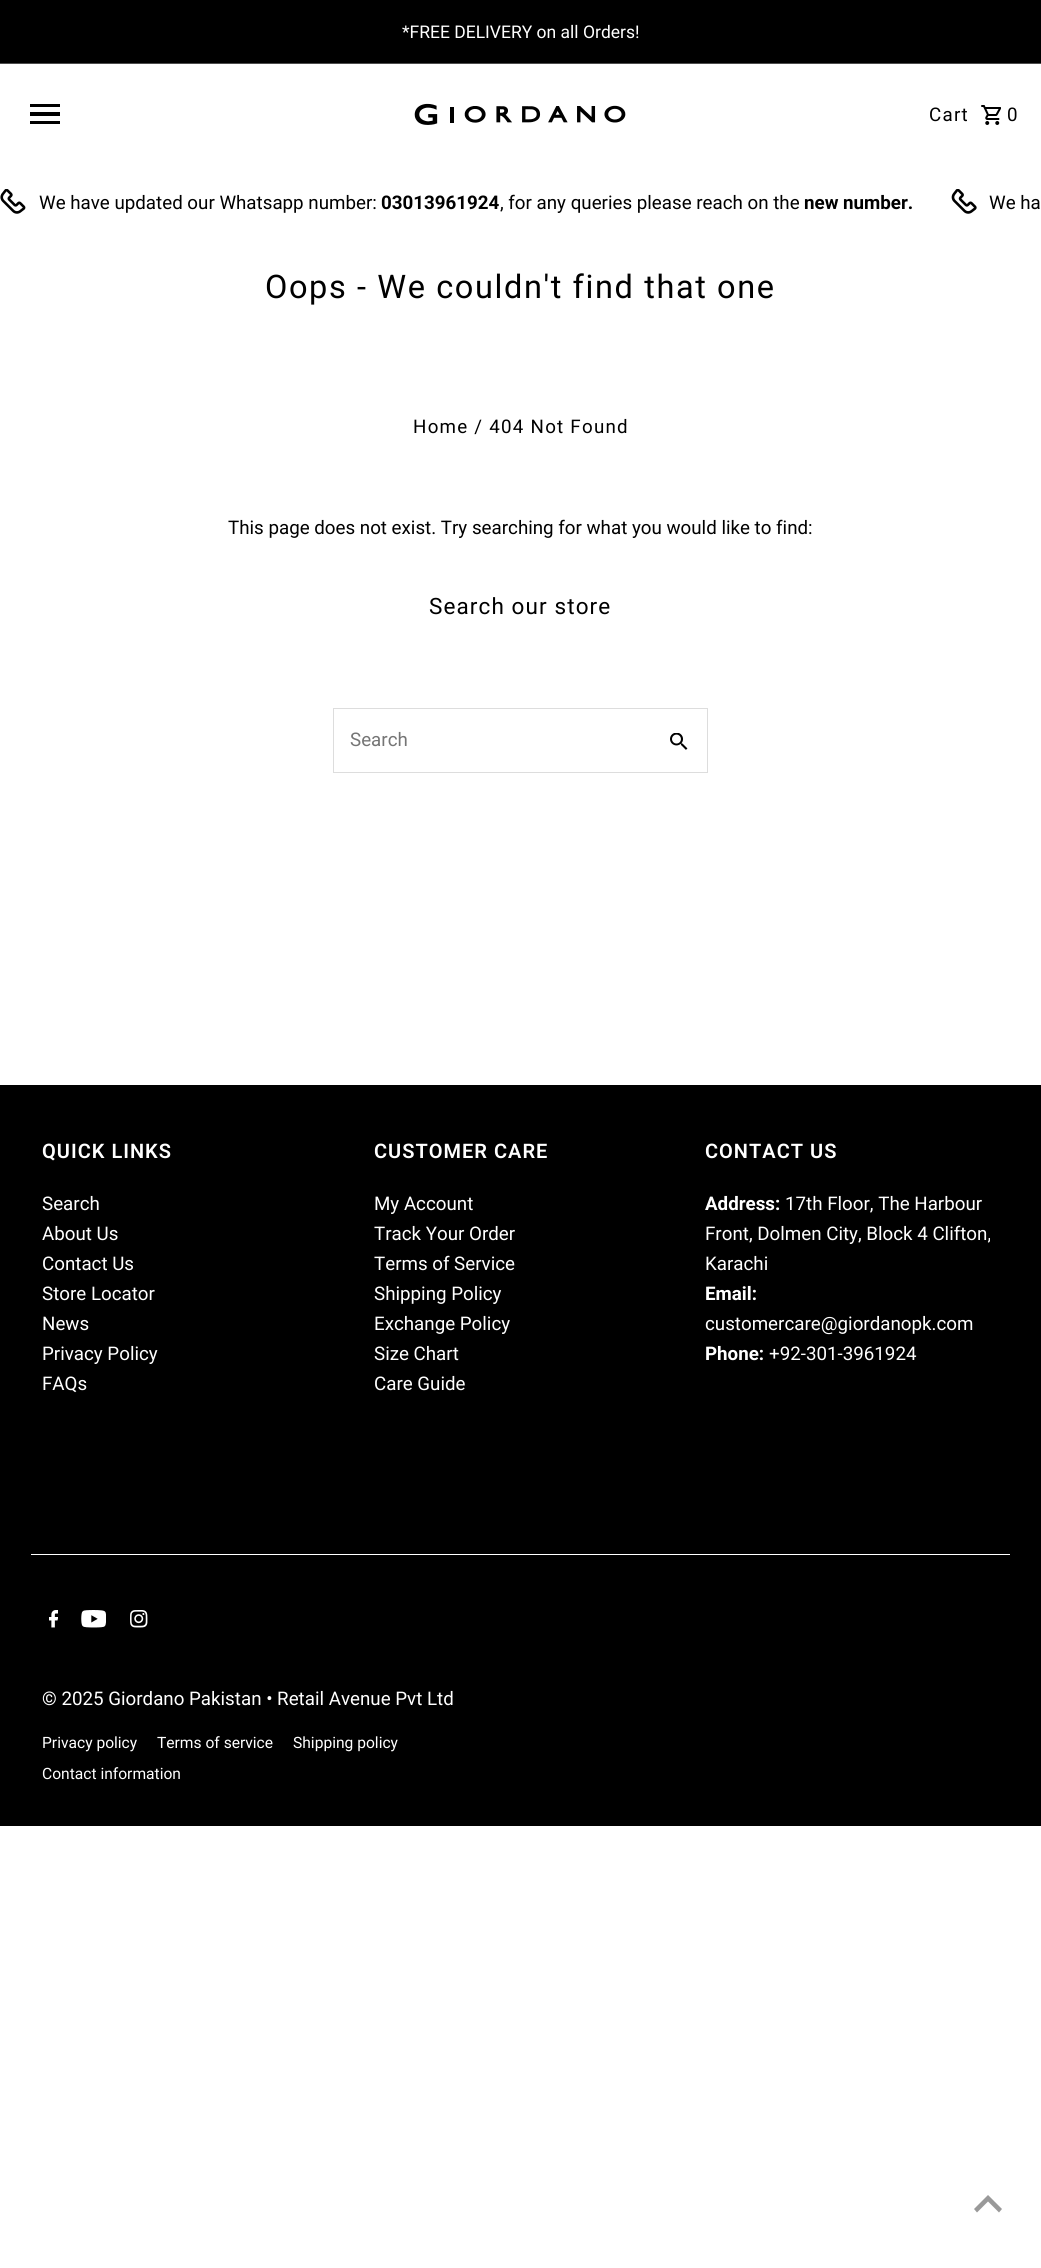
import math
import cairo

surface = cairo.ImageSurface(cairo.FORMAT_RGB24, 1041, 2268)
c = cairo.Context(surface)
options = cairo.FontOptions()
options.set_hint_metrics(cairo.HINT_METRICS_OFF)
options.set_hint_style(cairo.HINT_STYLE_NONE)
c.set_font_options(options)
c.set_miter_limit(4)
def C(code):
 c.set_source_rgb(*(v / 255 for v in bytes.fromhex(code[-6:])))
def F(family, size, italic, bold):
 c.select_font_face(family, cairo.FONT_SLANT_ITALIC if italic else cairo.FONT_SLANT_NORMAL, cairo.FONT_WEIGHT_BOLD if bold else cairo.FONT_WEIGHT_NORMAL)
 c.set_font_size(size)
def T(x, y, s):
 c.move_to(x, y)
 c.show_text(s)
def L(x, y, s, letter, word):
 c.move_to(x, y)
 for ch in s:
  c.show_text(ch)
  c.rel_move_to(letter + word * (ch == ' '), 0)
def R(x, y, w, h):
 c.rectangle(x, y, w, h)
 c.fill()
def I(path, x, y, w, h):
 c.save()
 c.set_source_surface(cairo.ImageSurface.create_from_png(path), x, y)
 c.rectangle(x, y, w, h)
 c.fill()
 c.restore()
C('ffffff')
c.paint()
C('4d4d4d')
R(0,63,1041,1)
C('000000')
R(0,0,1041,63)
F('Roboto',17.5,0,0)
C('ffffff')
T(402,38,'*FREE DELIVERY on all Orders!')
C('000000')
R(30,121,30,3)
R(30,112,30,4)
R(30,104,30,3)
I('1.png',414,103,212,22)
F('Roboto',18.75,0,0)
L(929,121,'Cart',1.25,0)
I('2.png',981,105,20,20)
L(1007,121,'0',1.25,0)
I('3.png',0,189,26,25)
T(39,209,'We have updated our Whatsapp number:')
F('Roboto',18.75,0,1)
T(381,209,'03013961924')
F('Roboto',18.75,0,0)
T(500,209,', for any queries please reach on the')
F('Roboto',18.75,0,1)
T(804,209,'new number.')
I('4.png',951,189,26,25)
F('Roboto',18.75,0,0)
T(989,209,'We ha')
F('Roboto',32.5,0,0)
L(265,298,'Oops - We couldn\'t find that one',1.6,0)
F('Roboto',18.75,0,0)
L(413,433,'Home / 404 Not Found',1.25,0)
T(228,534,'This page does not exist. Try searching for what you would like to find:')
F('Roboto',22.5,0,0)
L(429,614,'Search our store',1.1,0)
c.rectangle(333.5,708.5,374,64)
C('dddddd')
c.set_line_width(1)
c.stroke()
F('Roboto',18.75,0,0)
C('757575')
T(350,746,'Search')
I('5.png',670,733,18,17)
C('000000')
R(0,1085,1041,741)
F('Roboto SemiBold',20,0,0)
C('ffffff')
L(42,1158,'QUICK LINKS',1,0)
F('Roboto',18.75,0,0)
T(42,1210,'Search')
T(42,1240,'About Us')
T(42,1270,'Contact Us')
T(42,1300,'Store Locator')
T(42,1330,'News')
T(42,1360,'Privacy Policy')
T(42,1390,'FAQs')
F('Roboto SemiBold',20,0,0)
L(374,1158,'CUSTOMER CARE',1,0)
F('Roboto',18.75,0,0)
T(374,1210,'My Account')
T(374,1240,'Track Your Order')
T(374,1270,'Terms of Service')
T(374,1300,'Shipping Policy')
T(374,1330,'Exchange Policy')
T(374,1360,'Size Chart')
T(374,1390,'Care Guide')
F('Roboto SemiBold',20,0,0)
L(705,1158,'CONTACT US',1,0)
F('Roboto',18.75,0,1)
T(705,1210,'Address:')
F('Roboto',18.75,0,0)
T(785,1210,'17th Floor, The Harbour')
T(705,1240,'Front, Dolmen City, Block 4 Clifton,')
T(705,1270,'Karachi')
F('Roboto',18.75,0,1)
T(705,1300,'Email:')
F('Roboto',18.75,0,0)
T(705,1330,'customercare@giordanopk.com')
F('Roboto',18.75,0,1)
T(705,1360,'Phone:')
F('Roboto',18.75,0,0)
T(769,1360,'+92-301-3961924')
R(31,1554,979,1)
I('6.png',49,1610,9,18)
I('7.png',81,1610,25,18)
I('8.png',130,1610,18,18)
T(42,1705,'© 2025 Giordano Pakistan • Retail Avenue Pvt Ltd')
F('Roboto',15.6,0,0)
T(42,1748,'Privacy policy')
T(157,1748,'Terms of service')
T(293,1748,'Shipping policy')
T(42,1779,'Contact information')
C('999999')
c.new_path()
c.move_to(988,2195)
c.line_to(974,2209)
c.line_to(977,2212.5)
c.line_to(988,2201.5)
c.line_to(999,2212.5)
c.line_to(1002,2209)
c.close_path()
c.fill()
surface.write_to_png('o.png')
